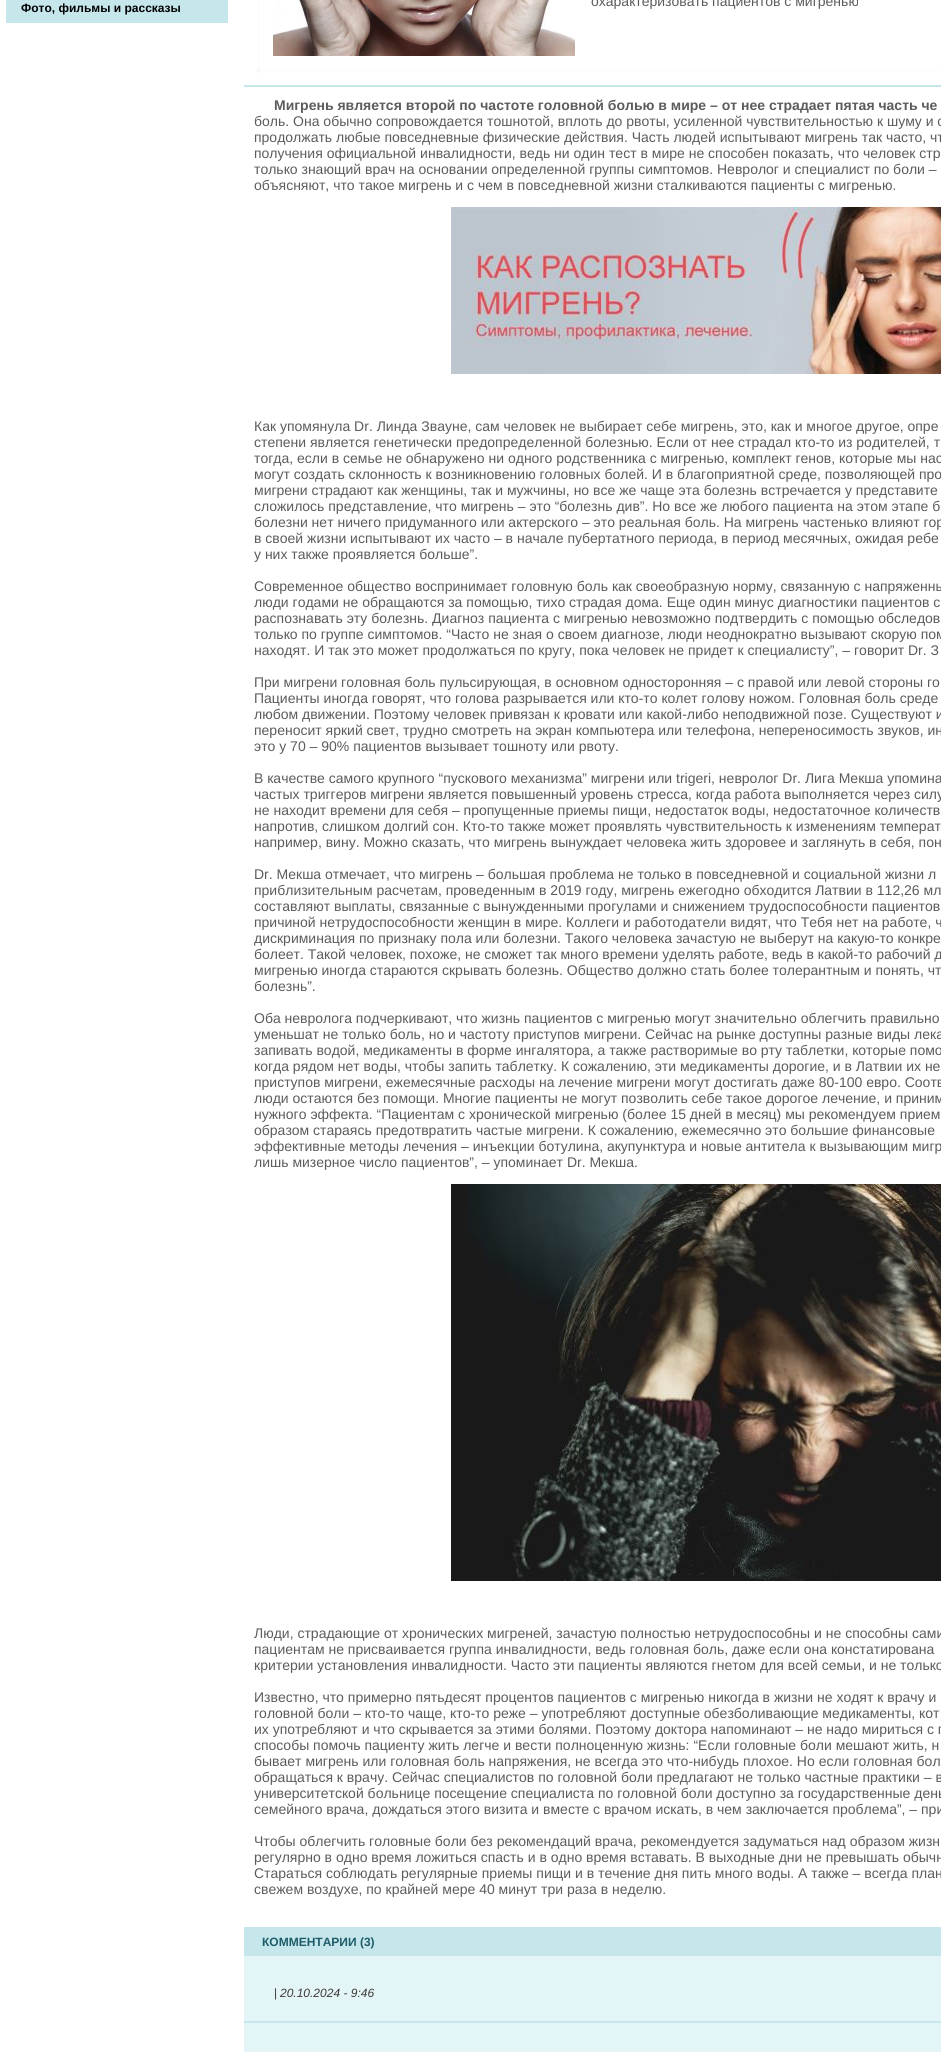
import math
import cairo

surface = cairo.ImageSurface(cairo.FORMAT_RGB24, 941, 2052)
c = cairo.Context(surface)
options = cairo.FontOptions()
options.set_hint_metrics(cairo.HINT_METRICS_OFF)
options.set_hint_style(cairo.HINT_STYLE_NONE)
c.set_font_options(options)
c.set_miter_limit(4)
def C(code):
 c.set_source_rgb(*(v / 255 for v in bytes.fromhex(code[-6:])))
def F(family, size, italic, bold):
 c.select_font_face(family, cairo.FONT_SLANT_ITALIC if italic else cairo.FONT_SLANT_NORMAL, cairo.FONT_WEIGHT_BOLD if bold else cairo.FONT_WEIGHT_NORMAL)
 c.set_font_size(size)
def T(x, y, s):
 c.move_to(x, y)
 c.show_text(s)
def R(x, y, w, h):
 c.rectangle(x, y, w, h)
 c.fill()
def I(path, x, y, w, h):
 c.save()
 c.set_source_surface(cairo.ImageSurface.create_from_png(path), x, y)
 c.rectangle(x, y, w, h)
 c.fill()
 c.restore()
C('ffffff')
c.paint()
C('c5e7ec')
R(6,0,222,23)
F('Liberation Sans',12,0,1)
C('000000')
T(21,12,'Фото, фильмы и рассказы')
C('fbfbfb')
R(258,0,1,68)
I('1.png',273,0,302,56)
F('Liberation Sans',14,0,0)
C('5c5c5c')
T(591,6,'охарактеризовать пациентов с мигренью')
I('2.png',256,68,5,5)
C('fbfbfb')
R(261,70,680,1)
C('c5e7ec')
R(244,85,697,2)
F('Liberation Sans',14,0,1)
C('5c5c5c')
T(274,110,'Мигрень является второй по частоте головной болью в мире – от нее страдает пятая часть че')
F('Liberation Sans',14,0,0)
T(254,126,'боль. Она обычно сопровождается тошнотой, вплоть до рвоты, усиленной чувствительностью к шуму и с')
T(254,142,'продолжать любые повседневные физические действия. Часть людей испытывают мигрень так часто, чт')
T(254,158,'получения официальной инвалидности, ведь ни один тест в мире не способен показать, что человек стр')
T(254,174,'только знающий врач на основании определенной группы симптомов. Невролог и специалист по боли –')
T(254,190,'объясняют, что такое мигрень и с чем в повседневной жизни сталкиваются пациенты с мигренью.')
I('3.png',451,207,490,167)
T(254,431,'Как упомянула Dr. Линда Звауне, сам человек не выбирает себе мигрень, это, как и многое другое, опре')
T(254,447,'степени является генетически предопределенной болезнью. Если от нее страдал кто-то из родителей, т')
T(254,463,'тогда, если в семье не обнаружено ни одного родственника с мигренью, комплект генов, которые мы нас')
T(254,479,'могут создать склонность к возникновению головных болей. И в благоприятной среде, позволяющей про')
T(254,495,'мигрени страдают как женщины, так и мужчины, но все же чаще эта болезнь встречается у представите')
T(254,511,'сложилось представление, что мигрень – это “болезнь див”. Но все же любого пациента на этом этапе б')
T(254,527,'болезни нет ничего придуманного или актерского – это реальная боль. На мигрень частенько влияют гор')
T(254,543,'в своей жизни испытывают их часто – в начале пубертатного периода, в период месячных, ожидая ребе')
T(254,559,'у них также проявляется больше”.')
T(254,591,'Современное общество воспринимает головную боль как своеобразную норму, связанную с напряженны')
T(254,607,'люди годами не обращаются за помощью, тихо страдая дома. Еще один минус диагностики пациентов с')
T(254,623,'распознавать эту болезнь. Диагноз пациента с мигренью невозможно подтвердить с помощью обследов')
T(254,639,'только по группе симптомов. “Часто не зная о своем диагнозе, люди неоднократно вызывают скорую пом')
T(254,655,'находят. И так это может продолжаться по кругу, пока человек не придет к специалисту”, – говорит Dr. З')
T(254,687,'При мигрени головная боль пульсирующая, в основном односторонняя – с правой или левой стороны го')
T(254,703,'Пациенты иногда говорят, что голова разрывается или кто-то колет голову ножом. Головная боль среде')
T(254,719,'любом движении. Поэтому человек привязан к кровати или какой-либо неподвижной позе. Существуют и')
T(254,735,'переносит яркий свет, трудно смотреть на экран компьютера или телефона, непереносимость звуков, ин')
T(254,751,'это у 70 – 90% пациентов вызывает тошноту или рвоту.')
T(254,783,'В качестве самого крупного “пускового механизма” мигрени или trigeri, невролог Dr. Лига Мекша упомина')
T(254,799,'частых триггеров мигрени является повышенный уровень стресса, когда работа выполняется через силу')
T(254,815,'не находит времени для себя – пропущенные приемы пищи, недостаток воды, недостаточное количеств')
T(254,831,'напротив, слишком долгий сон. Кто-то также может проявлять чувствительность к изменениям температ')
T(254,847,'например, вину. Можно сказать, что мигрень вынуждает человека жить здоровее и заглянуть в себя, пон')
T(254,879,'Dr. Мекша отмечает, что мигрень – большая проблема не только в повседневной и социальной жизни л')
T(254,895,'приблизительным расчетам, проведенным в 2019 году, мигрень ежегодно обходится Латвии в 112,26 мл')
T(254,911,'составляют выплаты, связанные с вынужденными прогулами и снижением трудоспособности пациентов')
T(254,927,'причиной нетрудоспособности женщин в мире. Коллеги и работодатели видят, что Тебя нет на работе, ч')
T(254,943,'дискриминация по признаку пола или болезни. Такого человека зачастую не выберут на какую-то конкре')
T(254,959,'болеет. Такой человек, похоже, не сможет так много времени уделять работе, ведь в какой-то рабочий д')
T(254,975,'мигренью иногда стараются скрывать болезнь. Общество должно стать более толерантным и понять, чт')
T(254,991,'болезнь”.')
T(254,1023,'Оба невролога подчеркивают, что жизнь пациентов с мигренью могут значительно облегчить правильно')
T(254,1039,'уменьшат не только боль, но и частоту приступов мигрени. Сейчас на рынке доступны разные виды лека')
T(254,1055,'запивать водой, медикаменты в форме ингалятора, а также растворимые во рту таблетки, которые помо')
T(254,1071,'когда рядом нет воды, чтобы запить таблетку. К сожалению, эти медикаменты дорогие, и в Латвии их не')
T(254,1087,'приступов мигрени, ежемесячные расходы на лечение мигрени могут достигать даже 80-100 евро. Соотв')
T(254,1103,'люди остаются без помощи. Многие пациенты не могут позволить себе такое дорогое лечение, и приним')
T(254,1119,'нужного эффекта. “Пациентам с хронической мигренью (более 15 дней в месяц) мы рекомендуем прием')
T(254,1135,'образом стараясь предотвратить частые мигрени. К сожалению, ежемесячно это большие финансовые')
T(254,1151,'эффективные методы лечения – инъекции ботулина, акупунктура и новые антитела к вызывающим мигр')
T(254,1167,'лишь мизерное число пациентов”, – упоминает Dr. Мекша.')
I('4.png',451,1184,490,397)
T(254,1638,'Люди, страдающие от хронических мигреней, зачастую полностью нетрудоспособны и не способны сами')
T(254,1654,'пациентам не присваивается группа инвалидности, ведь головная боль, даже если она констатирована')
T(254,1670,'критерии установления инвалидности. Часто эти пациенты являются гнетом для всей семьи, и не только')
T(254,1702,'Известно, что примерно пятьдесят процентов пациентов с мигренью никогда в жизни не ходят к врачу и')
T(254,1718,'головной боли – кто-то чаще, кто-то реже – употребляют доступные обезболивающие медикаменты, кот')
T(254,1734,'их употребляют и что скрывается за этими болями. Поэтому доктора напоминают – не надо мириться с г')
T(254,1750,'способы помочь пациенту жить легче и вести полноценную жизнь: “Если головные боли мешают жить, н')
T(254,1766,'бывает мигрень или головная боль напряжения, не всегда это что-нибудь плохое. Но если головная бол')
T(254,1782,'обращаться к врачу. Сейчас специалистов по головной боли предлагают не только частные практики – в')
T(254,1798,'университетской больнице посещение специалиста по головной боли доступно за государственные день')
T(254,1814,'семейного врача, дождаться этого визита и вместе с врачом искать, в чем заключается проблема”, – при')
T(254,1846,'Чтобы облегчить головные боли без рекомендаций врача, рекомендуется задуматься над образом жизн')
T(254,1862,'регулярно в одно время ложиться спасть и в одно время вставать. В выходные дни не превышать обычн')
T(254,1878,'Стараться соблюдать регулярные приемы пищи и в течение дня пить много воды. А также – всегда план')
T(254,1894,'свежем воздухе, по крайней мере 40 минут три раза в неделю.')
C('c5e7ec')
R(244,1927,697,29)
F('Liberation Sans',12,0,1)
C('1e5b69')
T(262,1946,'КОММЕНТАРИИ (3)')
C('e4f5f8')
R(244,1956,697,96)
F('Liberation Sans',12,0,0)
C('3d3936')
T(274,1997,'|')
F('Liberation Sans',12,1,0)
T(280,1997,'20.10.2024 - 9:46')
C('c5e7ec')
R(244,2021,697,2)
surface.write_to_png('o.png')
